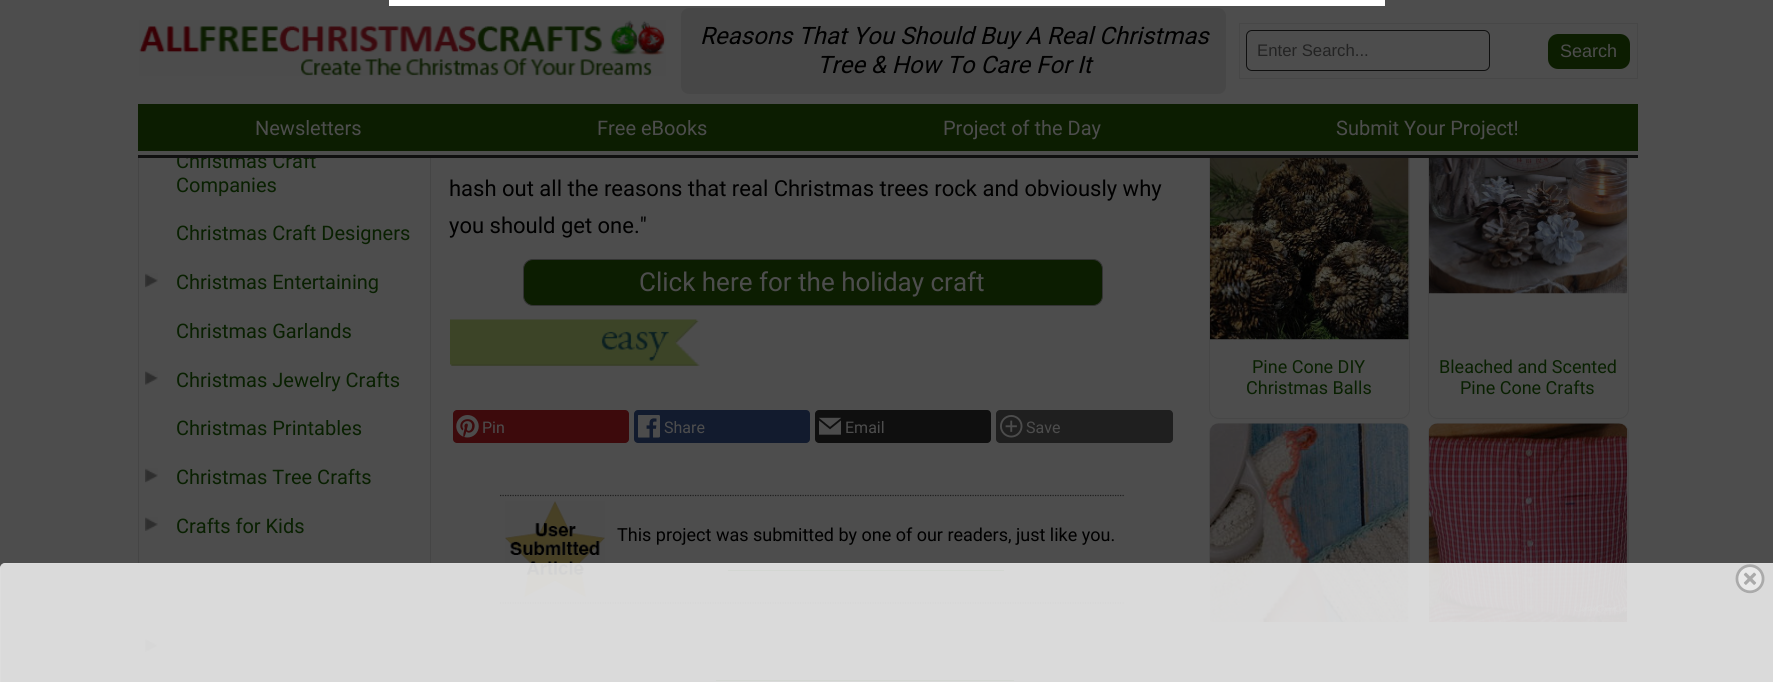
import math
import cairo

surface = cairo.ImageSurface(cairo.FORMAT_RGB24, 1773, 682)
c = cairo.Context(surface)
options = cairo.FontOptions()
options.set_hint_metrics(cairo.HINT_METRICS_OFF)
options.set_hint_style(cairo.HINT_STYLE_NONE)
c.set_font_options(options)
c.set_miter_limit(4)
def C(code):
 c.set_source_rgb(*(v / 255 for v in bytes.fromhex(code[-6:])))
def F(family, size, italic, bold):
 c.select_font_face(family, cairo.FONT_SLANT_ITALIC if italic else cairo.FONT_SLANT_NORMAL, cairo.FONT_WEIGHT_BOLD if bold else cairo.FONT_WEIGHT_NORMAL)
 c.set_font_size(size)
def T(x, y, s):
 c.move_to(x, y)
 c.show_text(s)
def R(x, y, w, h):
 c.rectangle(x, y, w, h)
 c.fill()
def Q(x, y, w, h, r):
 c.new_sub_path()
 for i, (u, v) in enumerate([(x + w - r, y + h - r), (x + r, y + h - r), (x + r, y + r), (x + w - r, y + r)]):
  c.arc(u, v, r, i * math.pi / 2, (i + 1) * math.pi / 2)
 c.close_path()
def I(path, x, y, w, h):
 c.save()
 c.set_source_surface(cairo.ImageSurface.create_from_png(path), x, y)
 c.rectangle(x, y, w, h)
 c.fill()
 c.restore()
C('4d4d4d')
c.paint()
c.rectangle(138.5,-.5,292,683)
C('454545')
c.set_line_width(1)
c.stroke()
F('Roboto',20,0,0)
C('092001')
T(176,168,'Christmas Craft')
Q(1209.5,140.5,200,278,9.5)
C('474747')
c.stroke()
Q(1428.5,140.5,200,278,9.5)
c.stroke()
C('4d4d4d')
R(138,0,1491,155)
C('ffffff')
R(389,0,996,6)
C('0f0f0f')
R(138,155,1500,3)
I('1.png',139,20,527,56)
C('474747')
Q(681,8,545,86,8)
c.fill()
F('Roboto',24,1,0)
C('000000')
T(700,44,'Reasons That You Should Buy A Real Christmas')
T(817,73,'Tree & How To Care For It')
c.rectangle(1239.5,23.5,398,55)
C('474747')
c.stroke()
Q(1246.5,30.5,243,40,5.5)
C('0f0f0f')
c.stroke()
F('Liberation Sans',16.75,0,0)
C('232323')
T(1257,56,'Enter Search...')
C('0c1d01')
Q(1548,34,82,35,10)
c.fill()
F('Liberation Sans',18,0,0)
C('4d4d4d')
T(1560,57,'Search')
C('0c1d01')
R(138,104,1500,47)
F('Roboto',20,0,0)
C('4d4d4d')
T(255,135,'Newsletters')
T(597,135,'Free eBooks')
T(943,135,'Project of the Day')
T(1336,135,'Submit Your Project!')
C('092001')
T(176,192,'Companies')
T(176,240,'Christmas Craft Designers')
I('2.png',145,273,13,15)
T(176,289,'Christmas Entertaining')
T(176,338,'Christmas Garlands')
I('3.png',145,371,13,14)
T(176,387,'Christmas Jewelry Crafts')
T(176,435,'Christmas Printables')
I('2.png',145,468,13,15)
T(176,484,'Christmas Tree Crafts')
I('4.png',145,517,13,14)
T(176,533,'Crafts for Kids')
I('2.png',145,638,13,15)
F('Roboto',22,0,0)
C('000000')
T(449,196,'hash out all the reasons that real Christmas trees rock and obviously why')
T(449,233,'you should get one."')
C('0c1d01')
Q(523.5,259.5,579,46,9.5)
c.fill_preserve()
C('333333')
c.stroke()
F('Roboto',26,0,0)
C('4d4d4d')
T(639,291,'Click here for the holiday craft')
I('5.png',450,319,250,47)
C('3d0a0c')
Q(453,410,176,33,4)
c.fill()
I('6.png',456,415,23,23)
F('Roboto',16,0,0)
C('4d4d4d')
T(482,433,'Pin')
C('121b2e')
Q(634,410,176,33,4)
c.fill()
I('7.png',638,415,22,23)
C('4d4d4d')
T(664,433,'Share')
C('0f0f0f')
Q(815,410,176,33,4)
c.fill()
I('8.png',819,417,22,18)
C('4d4d4d')
T(845,433,'Email')
C('1f1f1f')
Q(996,410,177,33,4)
c.fill()
I('9.png',1000,415,23,23)
C('4d4d4d')
T(1026,433,'Save')
c.new_path()
c.move_to(500,495.5)
c.line_to(1125,495.5)
C('202020')
c.set_line_width(1.2)
c.set_dash([1.25,1.25])
c.stroke()
c.new_path()
c.move_to(500,603)
c.line_to(1125,603)
c.stroke()
I('10.png',505,501,100,96)
F('Roboto',18,0,0)
C('000000')
T(617,541,'This project was submitted by one of our readers, just like you.')
C('092001')
R(728,570,276,1)
R(716,680,298,1)
I('11.png',1210,158,199,182)
T(1252,373,'Pine Cone DIY')
T(1246,394,'Christmas Balls')
I('12.png',1429,158,199,136)
T(1439,373,'Bleached and Scented')
T(1460,394,'Pine Cone Crafts')
Q(1209.5,423.5,200,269,9.5)
C('474747')
c.set_line_width(1)
c.set_dash([])
c.stroke()
I('13.png',1210,423,199,199)
Q(1428.5,423.5,200,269,9.5)
c.stroke()
I('14.png',1429,423,199,199)
c.set_source_rgba(0.922,0.922,0.922,0.89)
c.new_path()
c.move_to(5,563.5)
c.line_to(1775.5,563.5)
c.line_to(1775.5,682.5)
c.line_to(.5,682.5)
c.line_to(.5,568)
c.curve_to(.5,565.5,2.5,563.5,5,563.5)
c.close_path()
c.fill_preserve()
C('dddddd')
c.stroke()
I('15.png',1735,564,30,30)
surface.write_to_png('o.png')
